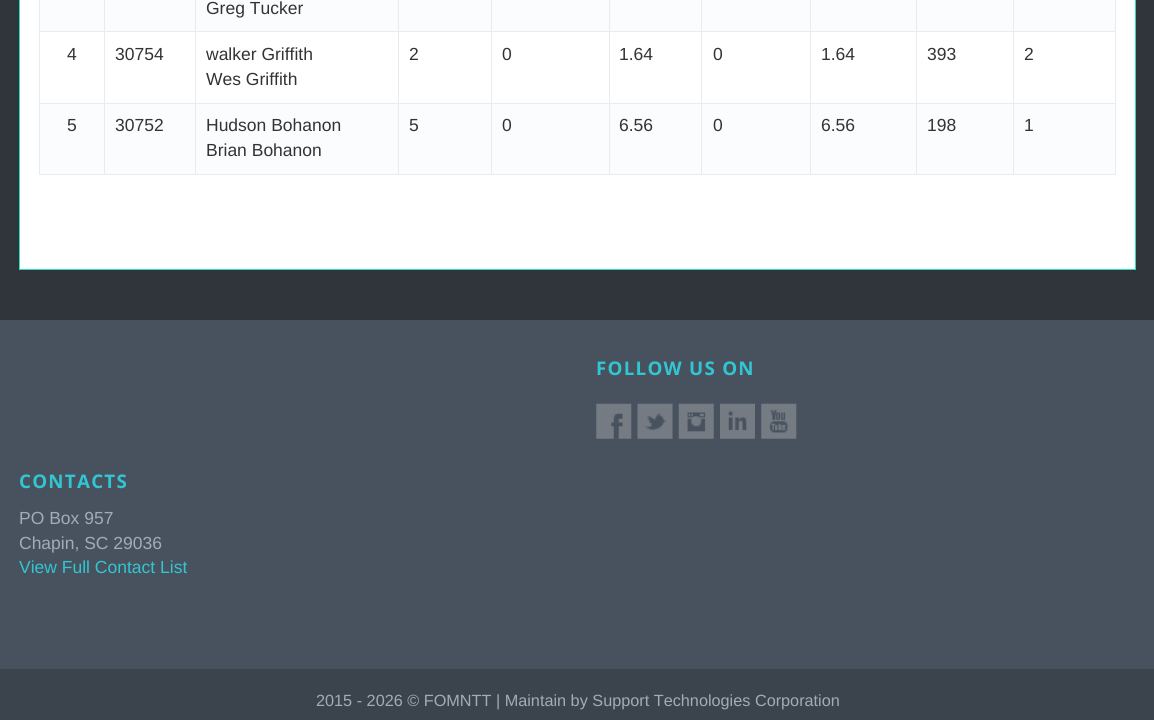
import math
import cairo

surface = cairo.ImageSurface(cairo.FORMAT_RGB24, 1154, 720)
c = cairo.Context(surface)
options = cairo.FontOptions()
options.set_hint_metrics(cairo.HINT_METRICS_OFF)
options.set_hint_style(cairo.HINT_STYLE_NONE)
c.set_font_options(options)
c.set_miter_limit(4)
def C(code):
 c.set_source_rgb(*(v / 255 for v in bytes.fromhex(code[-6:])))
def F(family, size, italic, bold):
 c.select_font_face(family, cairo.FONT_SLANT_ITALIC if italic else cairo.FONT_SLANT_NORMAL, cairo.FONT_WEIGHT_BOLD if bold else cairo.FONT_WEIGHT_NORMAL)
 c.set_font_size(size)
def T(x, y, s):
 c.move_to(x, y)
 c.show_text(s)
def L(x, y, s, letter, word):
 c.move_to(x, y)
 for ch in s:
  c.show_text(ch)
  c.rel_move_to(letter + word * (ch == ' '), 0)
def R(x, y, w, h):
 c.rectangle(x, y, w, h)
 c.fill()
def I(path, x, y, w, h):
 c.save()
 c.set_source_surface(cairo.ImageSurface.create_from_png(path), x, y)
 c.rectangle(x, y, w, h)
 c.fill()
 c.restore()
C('2f353b')
c.paint()
C('2ae0bb')
R(1135,0,1,270)
R(19,269,1117,1)
R(19,0,1,270)
C('ffffff')
R(20,0,1115,269)
C('e7ecf1')
R(1115,0,1,175)
R(39,174,1077,1)
R(39,0,1,175)
C('fbfcfd')
R(40,0,1075,31)
C('e7ecf1')
R(1013,31,103,1)
R(1013,103,103,1)
C('fbfcfd')
R(40,104,1075,70)
C('e7ecf1')
R(1013,103,1,72)
R(916,103,98,1)
R(1013,31,1,73)
R(916,31,98,1)
R(916,103,1,72)
R(810,103,108,1)
R(916,31,1,73)
R(810,31,108,1)
R(810,103,1,72)
R(701,103,110,1)
R(810,31,1,73)
R(701,31,110,1)
R(701,103,1,72)
R(609,103,94,1)
R(701,31,1,73)
R(609,31,94,1)
R(609,103,1,72)
R(491,103,119,1)
R(609,31,1,73)
R(491,31,119,1)
R(491,103,1,72)
R(398,103,95,1)
R(491,31,1,73)
R(398,31,95,1)
R(398,103,1,72)
R(195,103,204,1)
R(398,31,1,73)
R(195,31,204,1)
R(195,103,1,72)
R(104,103,92,1)
R(195,31,1,73)
R(104,31,92,1)
R(104,103,1,72)
R(39,103,66,1)
R(104,31,1,73)
R(39,31,66,1)
R(104,0,1,33)
R(195,0,1,33)
F('Liberation Sans',17.5,0,0)
C('333333')
T(206,14,'Greg Tucker')
C('e7ecf1')
R(398,0,1,33)
R(491,0,1,33)
R(609,0,1,33)
R(701,0,1,33)
R(810,0,1,33)
R(916,0,1,33)
R(1013,0,1,33)
C('333333')
T(67,60,'4')
T(115,60,'30754')
T(206,60,'walker Griffith')
T(206,85,'Wes Griffith')
T(409,60,'2')
T(502,60,'0')
T(619,60,'1.64')
T(713,60,'0')
T(821,60,'1.64')
T(927,60,'393')
T(1024,60,'2')
T(67,131,'5')
T(115,131,'30752')
T(206,131,'Hudson Bohanon')
T(206,156,'Brian Bohanon')
T(409,131,'5')
T(502,131,'0')
T(619,131,'6.56')
T(713,131,'0')
T(821,131,'6.56')
T(927,131,'198')
T(1024,131,'1')
C('48525e')
R(0,320,1154,349)
F('Open Sans',18.75,0,1)
C('32c5d2')
L(596,375,'FOLLOW US ON',1.25,0)
I('1.png',596,403,36,36)
I('2.png',637,403,36,36)
I('3.png',678,403,36,36)
I('4.png',720,403,35,36)
I('5.png',761,403,36,36)
L(19,488,'CONTACTS',1.25,0)
F('Liberation Sans',17.5,0,0)
C('a2abb7')
T(19,524,'PO Box 957')
T(19,549,'Chapin, SC 29036')
C('32c5d2')
T(19,573,'View Full Contact List')
C('3b434c')
R(0,669,1154,51)
F('Liberation Sans',16.25,0,0)
C('a2abb7')
T(316,706,'2015 - 2026 © FOMNTT | Maintain by Support Technologies Corporation')
surface.write_to_png('o.png')
